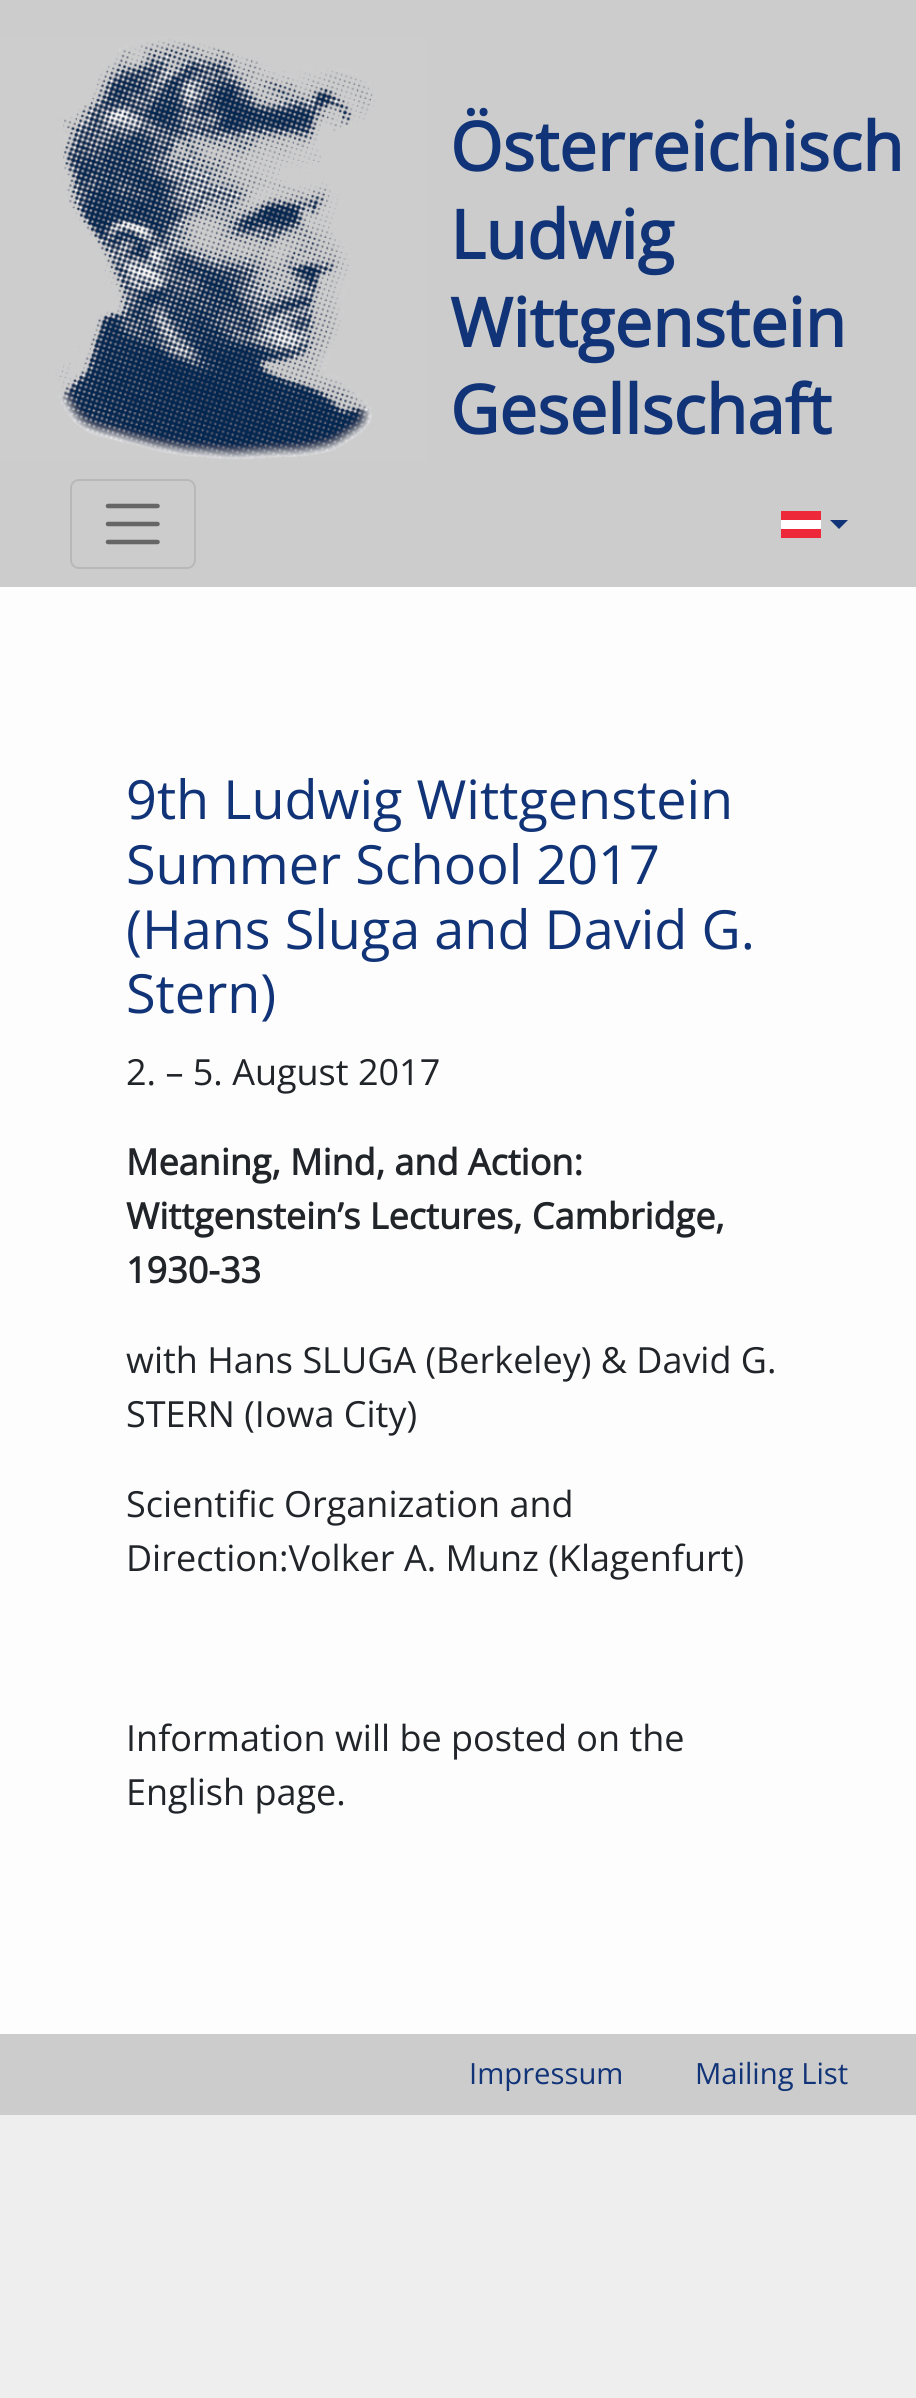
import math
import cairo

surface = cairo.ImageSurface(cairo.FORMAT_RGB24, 916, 2398)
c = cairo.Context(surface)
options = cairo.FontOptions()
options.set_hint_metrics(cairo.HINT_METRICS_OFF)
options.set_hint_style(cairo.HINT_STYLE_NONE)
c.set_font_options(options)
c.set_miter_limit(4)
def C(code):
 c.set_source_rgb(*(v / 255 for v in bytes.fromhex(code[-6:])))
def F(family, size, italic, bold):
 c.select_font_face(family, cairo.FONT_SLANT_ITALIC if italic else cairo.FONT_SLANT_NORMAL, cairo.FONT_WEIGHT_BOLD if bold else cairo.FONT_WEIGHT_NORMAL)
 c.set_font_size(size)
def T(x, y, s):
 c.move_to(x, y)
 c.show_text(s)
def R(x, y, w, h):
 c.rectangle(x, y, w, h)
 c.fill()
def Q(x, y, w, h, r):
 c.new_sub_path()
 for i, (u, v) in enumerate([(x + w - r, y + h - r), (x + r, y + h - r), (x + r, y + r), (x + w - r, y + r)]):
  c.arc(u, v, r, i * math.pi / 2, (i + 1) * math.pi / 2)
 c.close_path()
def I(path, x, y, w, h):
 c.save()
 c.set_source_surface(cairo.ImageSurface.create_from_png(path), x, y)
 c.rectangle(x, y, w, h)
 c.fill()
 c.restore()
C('eeeeee')
c.paint()
C('cccccc')
R(0,0,916,587)
I('1.png',0,36,427,425)
F('Open Sans',67.5,0,1)
C('113377')
T(450,171,'Österreichisch')
T(450,259,'Ludwig')
T(450,347,'Wittgenstein')
T(450,434,'Gesellschaft')
Q(71,480,124,88,8)
C('b8b8b8')
c.stroke()
c.new_path()
c.move_to(108,506)
c.line_to(157.5,506)
c.move_to(108,524)
c.line_to(157.5,524)
c.move_to(108,542)
c.line_to(157.5,542)
C('666666')
c.set_line_width(4.5)
c.set_line_cap(cairo.LINE_CAP_ROUND)
c.stroke()
C('ed2939')
R(781,511,40,27)
C('ffffff')
R(781,520,40,9)
C('113377')
c.new_path()
c.move_to(830,520)
c.line_to(848,520)
c.line_to(839,529)
c.close_path()
c.fill()
C('fdfdfd')
R(0,587,916,1447)
F('Open Sans',54,0,0)
C('113377')
T(126,819,'9th Ludwig Wittgenstein')
T(126,884,'Summer School 2017')
T(126,949,'(Hans Sluga and David G.')
T(126,1013,'Stern)')
F('Open Sans',36,0,0)
C('212529')
T(126,1085,'2. – 5. August 2017')
F('Open Sans',36,0,1)
T(126,1175,'Meaning, Mind, and Action:')
T(126,1229,'Wittgenstein’s Lectures, Cambridge,')
T(126,1283,'1930-33')
F('Open Sans',36,0,0)
T(126,1373,'with Hans SLUGA (Berkeley) & David G.')
T(126,1427,'STERN (Iowa City)')
T(126,1517,'Scientific Organization and')
T(126,1571,'Direction:Volker A. Munz (Klagenfurt)')
T(126,1751,'Information will be posted on the')
T(126,1805,'English page.')
C('cccccc')
R(0,2034,916,81)
F('Open Sans',29.25,0,0)
C('113377')
T(469,2084,'Impressum')
T(695,2084,'Mailing List')
surface.write_to_png('o.png')
